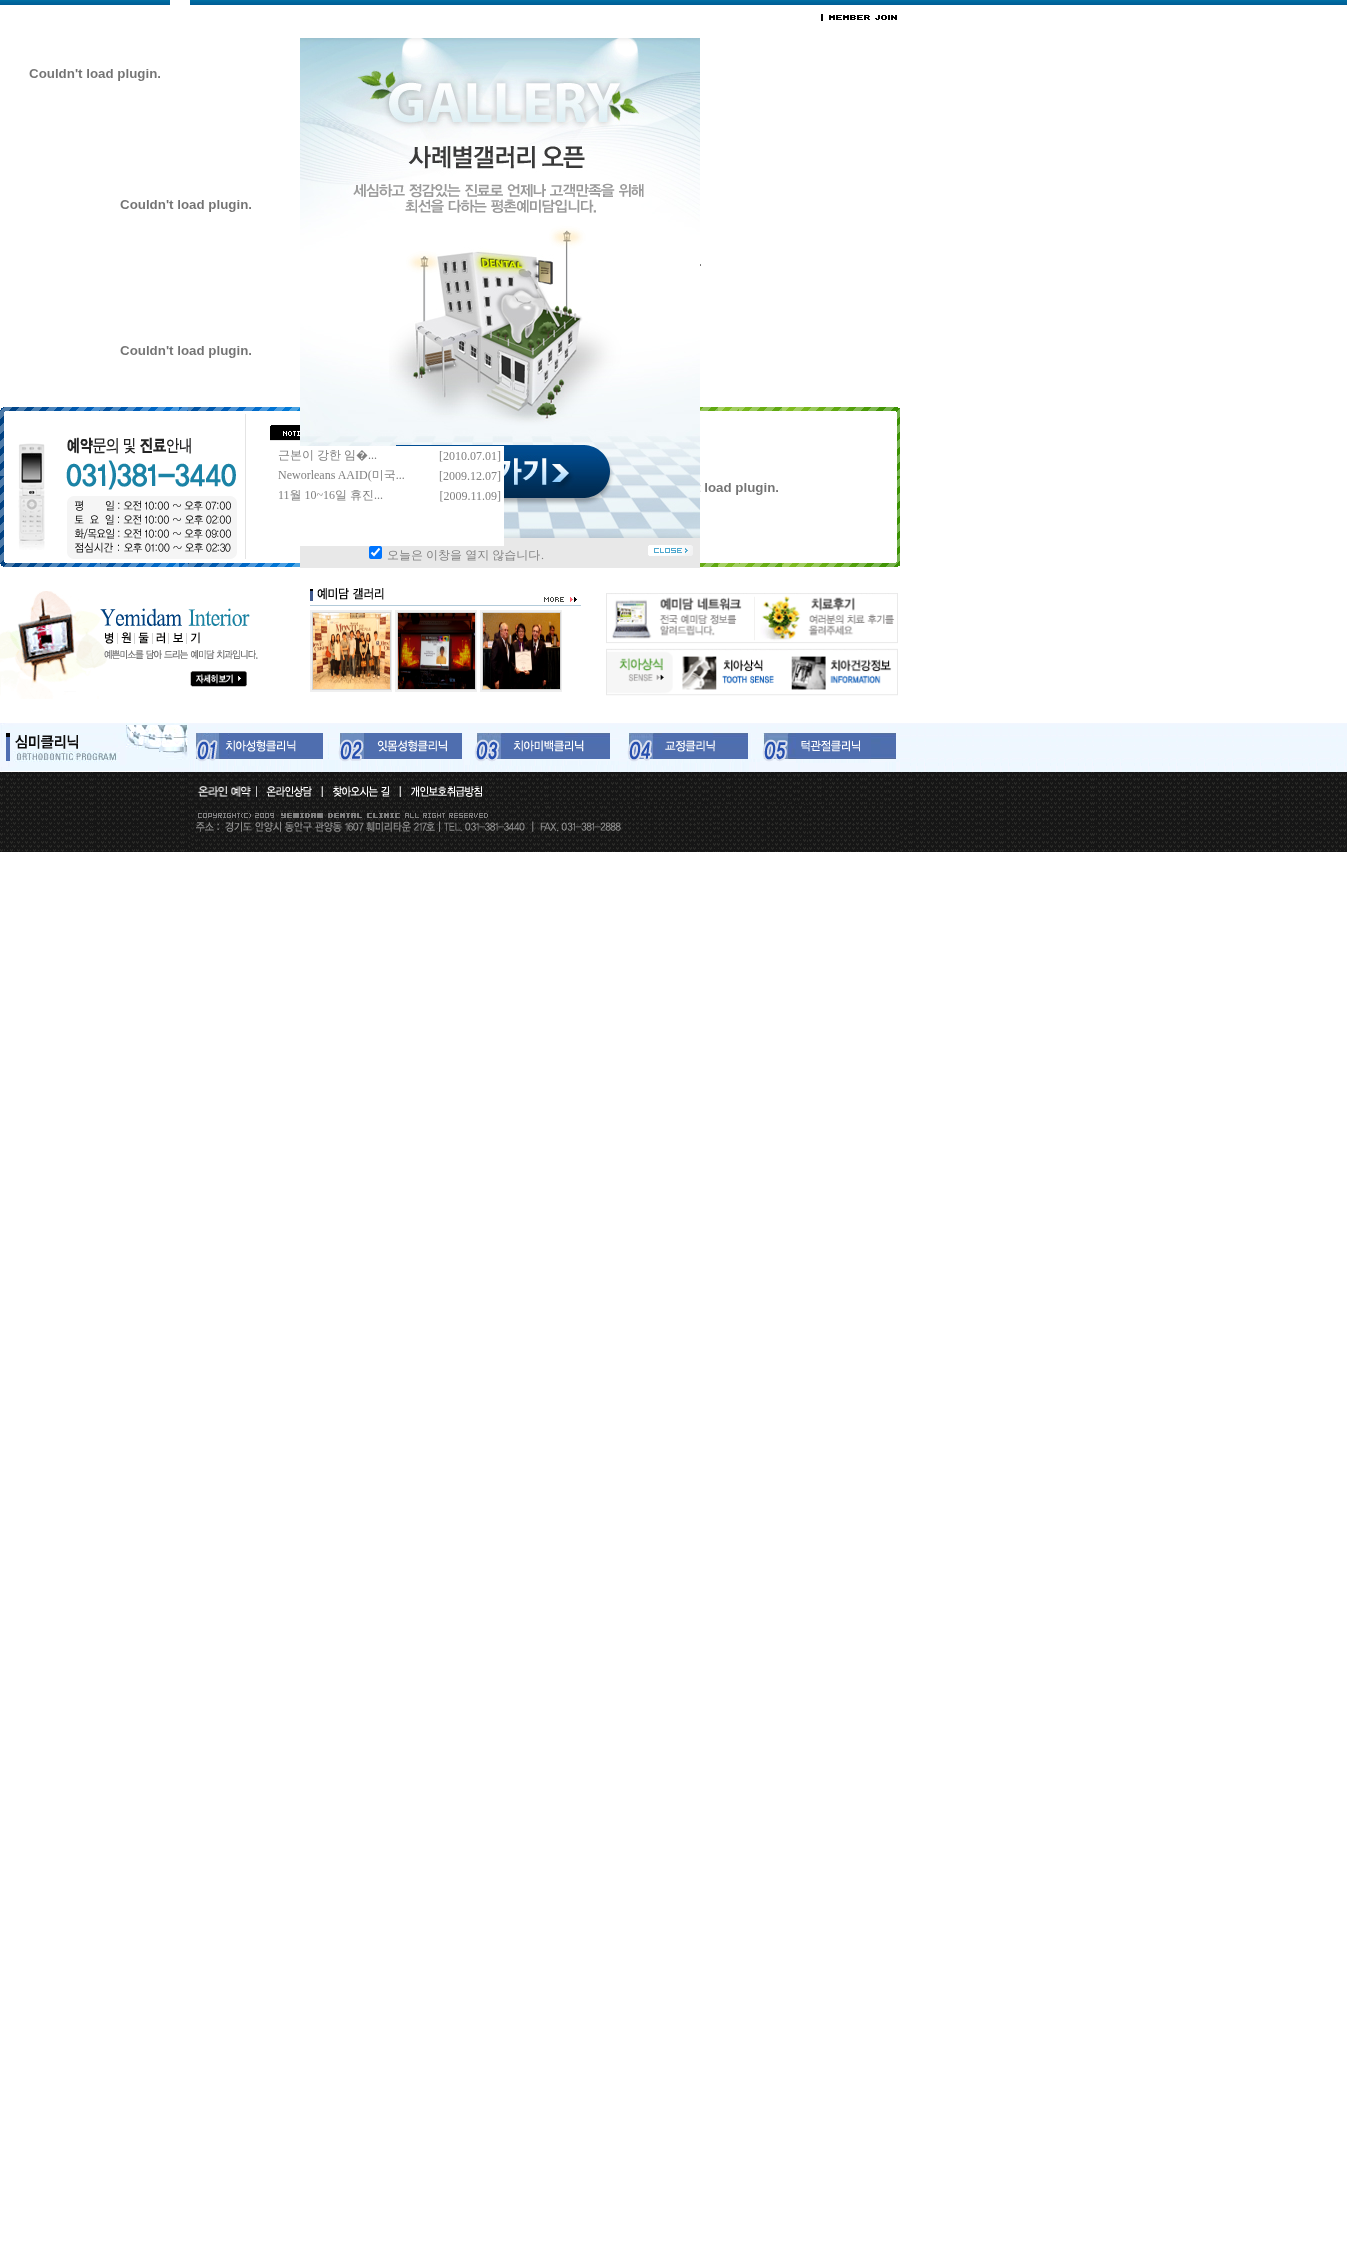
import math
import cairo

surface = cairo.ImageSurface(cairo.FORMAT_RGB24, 1347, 2245)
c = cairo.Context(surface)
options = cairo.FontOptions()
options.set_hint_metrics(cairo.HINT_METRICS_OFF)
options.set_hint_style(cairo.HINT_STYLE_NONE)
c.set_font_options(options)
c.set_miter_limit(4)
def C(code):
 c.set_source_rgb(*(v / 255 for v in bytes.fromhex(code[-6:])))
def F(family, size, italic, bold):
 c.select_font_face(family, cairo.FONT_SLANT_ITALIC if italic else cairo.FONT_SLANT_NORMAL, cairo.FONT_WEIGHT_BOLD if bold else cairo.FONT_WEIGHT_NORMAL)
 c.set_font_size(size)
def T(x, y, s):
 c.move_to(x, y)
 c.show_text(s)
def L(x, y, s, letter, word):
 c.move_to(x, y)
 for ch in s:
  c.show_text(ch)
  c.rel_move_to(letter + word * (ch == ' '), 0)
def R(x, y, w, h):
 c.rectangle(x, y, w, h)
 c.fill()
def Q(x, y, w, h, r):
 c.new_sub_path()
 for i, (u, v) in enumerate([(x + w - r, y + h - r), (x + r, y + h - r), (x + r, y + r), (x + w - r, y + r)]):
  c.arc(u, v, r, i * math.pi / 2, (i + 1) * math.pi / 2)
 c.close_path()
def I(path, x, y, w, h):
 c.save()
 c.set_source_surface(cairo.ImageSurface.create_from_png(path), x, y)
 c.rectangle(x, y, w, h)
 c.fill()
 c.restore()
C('ffffff')
c.paint()
I('1.png',0,0,1347,5)
I('2.png',821,14,76,7)
I('3.png',29,69,131,12)
I('3.png',120,200,131,12)
I('3.png',120,346,131,12)
I('4.png',700,257,1,12)
I('5.png',0,407,247,160)
I('6.png',247,407,53,160)
I('7.png',270,425,30,16)
I('28.png',300,38,400,500)
C('e8e8e8')
R(300,538,400,30)
C('ffffff')
R(300,446,204,100)
I('8.png',278,450,223,52)
I('9.png',700,407,200,160)
I('10.png',700,483,78,12)
I('11.png',0,591,258,108)
I('12.png',310,588,271,18)
I('13.png',310,610,252,82)
I('14.png',606,593,292,103)
I('15.png',190,723,1157,49)
I('16.png',0,723,190,49)
I('17.png',190,733,141,39)
I('18.png',331,733,138,39)
I('19.png',469,733,150,39)
I('20.png',627,733,128,39)
I('21.png',757,733,143,39)
I('22.png',0,772,1347,80)
I('23.png',191,772,65,32)
I('24.png',256,772,64,32)
I('25.png',321,772,75,32)
I('26.png',398,772,94,32)
I('27.png',190,804,709,48)
C('0075ff')
Q(369,546,13,13,2)
c.fill()
c.new_path()
c.move_to(371.5,552.5)
c.line_to(374,555)
c.line_to(379.5,548.5)
C('ffffff')
c.set_line_width(2.1)
c.stroke()
F('WenQuanYi Zen Hei Medium',12,0,0)
C('808080')
L(387,559,'오늘은 이창을 열지 않습니다',0,-.5)
F('Liberation Serif',12,0,0)
T(541,559,'.')
I('29.png',648,545,45,11)
surface.write_to_png('o.png')
